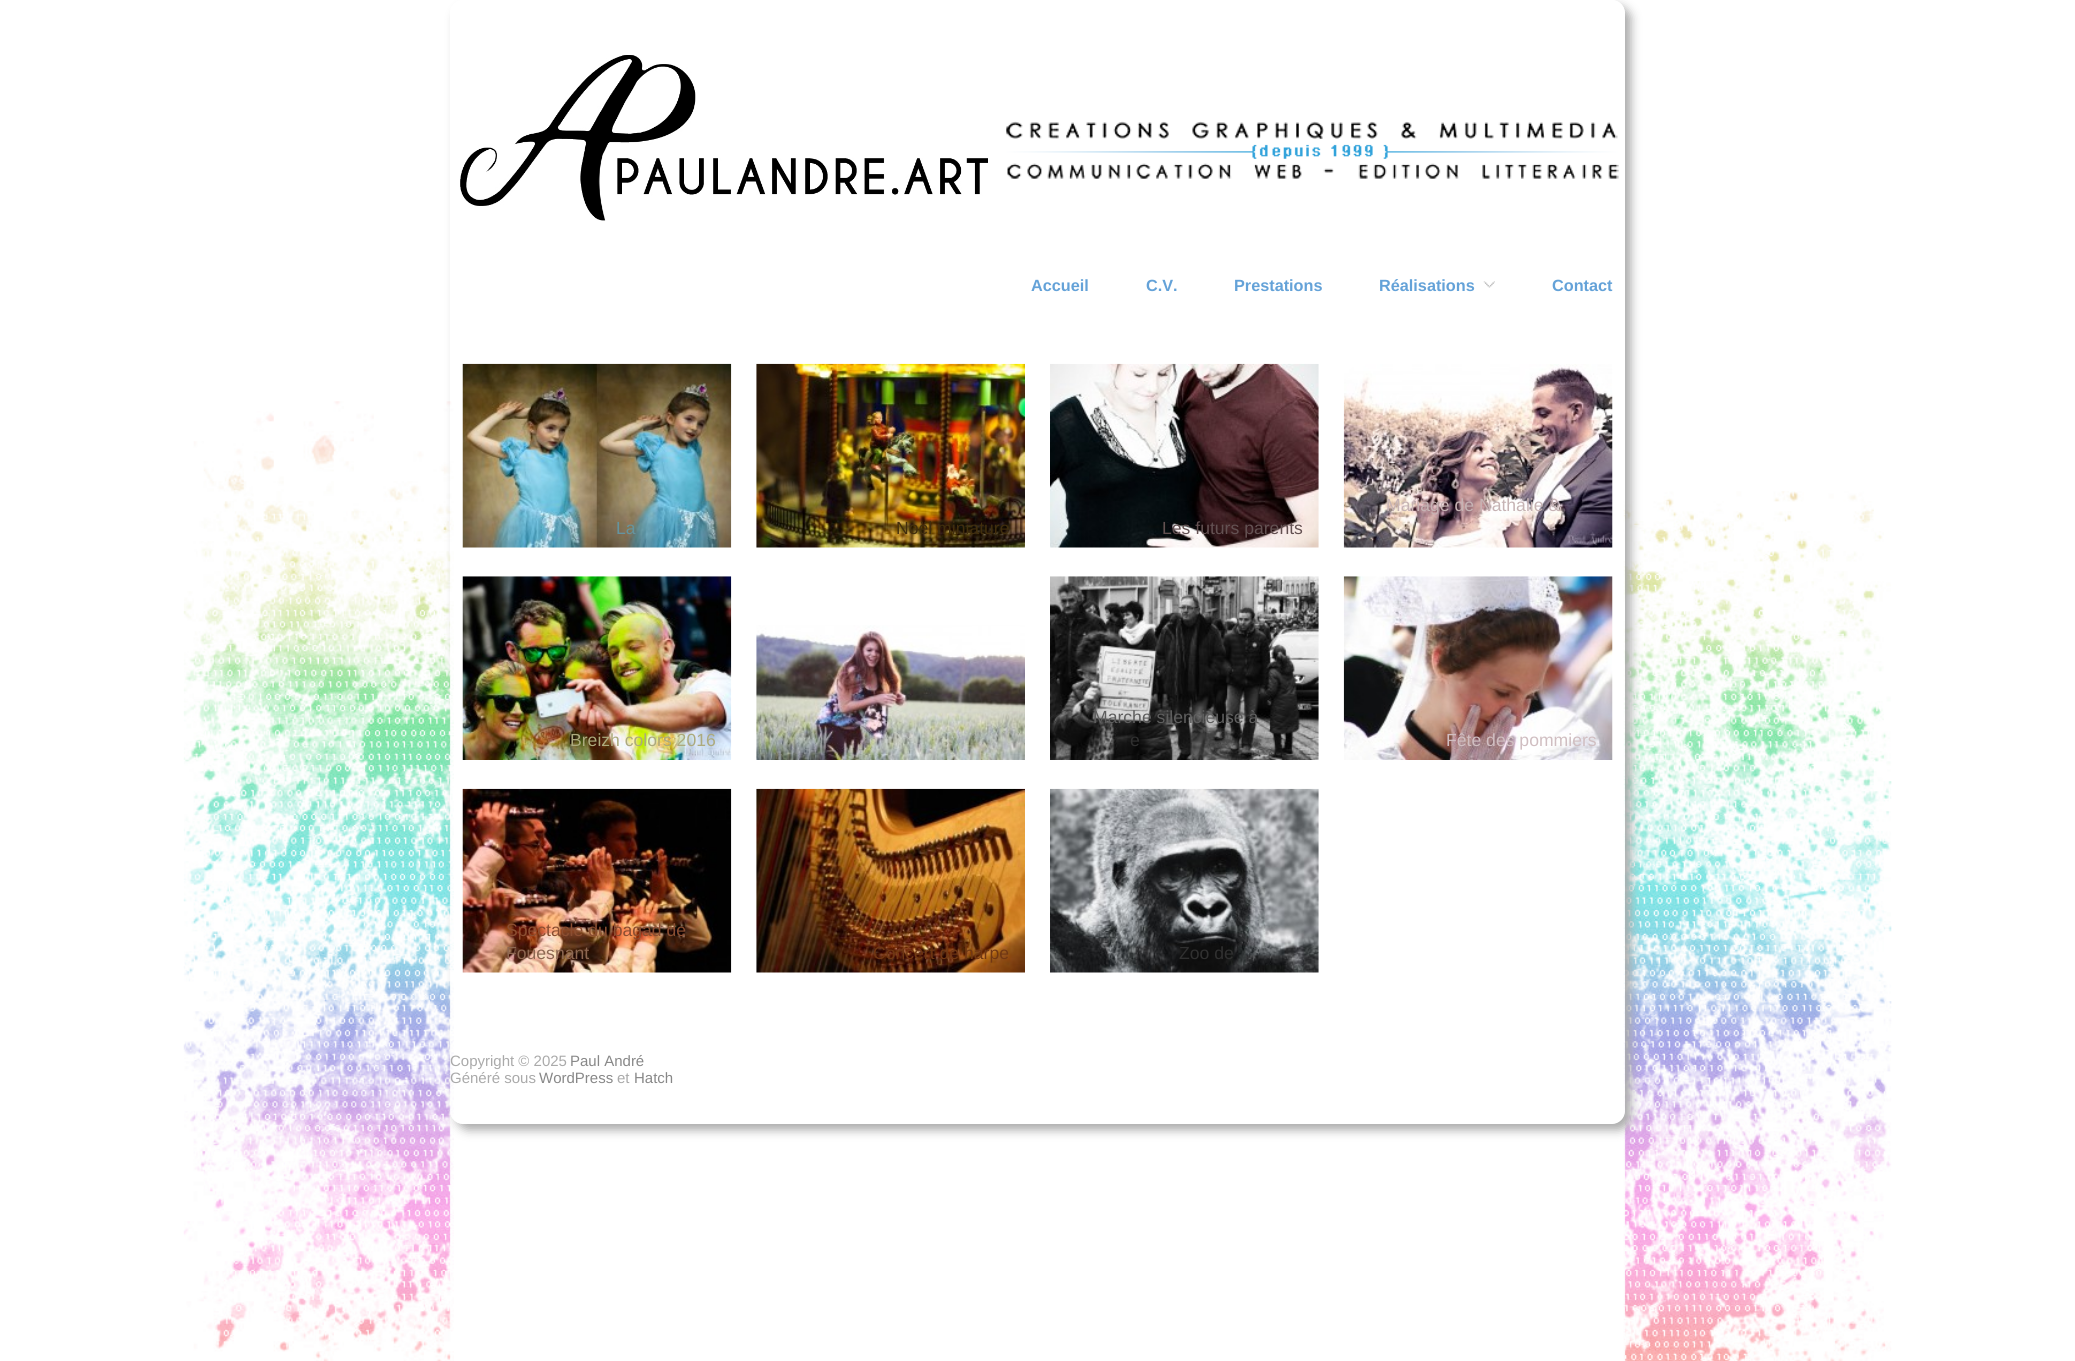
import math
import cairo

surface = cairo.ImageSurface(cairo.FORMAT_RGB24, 2075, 1361)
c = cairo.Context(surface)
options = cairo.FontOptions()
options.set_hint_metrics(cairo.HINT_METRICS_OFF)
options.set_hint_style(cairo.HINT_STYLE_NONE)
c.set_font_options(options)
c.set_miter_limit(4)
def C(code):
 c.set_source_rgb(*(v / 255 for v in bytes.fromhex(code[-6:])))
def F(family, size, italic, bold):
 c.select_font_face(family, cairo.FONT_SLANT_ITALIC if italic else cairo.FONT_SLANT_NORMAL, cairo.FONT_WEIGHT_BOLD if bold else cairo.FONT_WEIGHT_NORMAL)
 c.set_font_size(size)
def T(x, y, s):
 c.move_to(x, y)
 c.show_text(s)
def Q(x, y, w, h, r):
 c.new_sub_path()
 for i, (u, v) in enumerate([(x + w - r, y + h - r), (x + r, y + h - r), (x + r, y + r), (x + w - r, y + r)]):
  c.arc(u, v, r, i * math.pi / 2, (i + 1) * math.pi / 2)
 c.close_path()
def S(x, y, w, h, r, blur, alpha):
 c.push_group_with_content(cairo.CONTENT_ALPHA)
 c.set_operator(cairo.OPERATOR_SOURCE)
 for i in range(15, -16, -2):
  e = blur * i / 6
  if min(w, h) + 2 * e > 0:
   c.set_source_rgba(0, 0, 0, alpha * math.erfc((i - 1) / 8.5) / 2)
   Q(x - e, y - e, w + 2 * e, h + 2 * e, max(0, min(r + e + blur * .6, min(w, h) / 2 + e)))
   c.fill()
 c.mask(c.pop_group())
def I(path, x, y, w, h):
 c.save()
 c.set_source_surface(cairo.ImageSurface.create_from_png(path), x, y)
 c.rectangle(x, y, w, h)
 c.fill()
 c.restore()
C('ffffff')
c.paint()
I('1.png',183,401,1709,960)
c.save()
c.set_fill_rule(cairo.FILL_RULE_EVEN_ODD)
c.new_path()
c.move_to(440,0)
c.line_to(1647,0)
c.line_to(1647,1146)
c.line_to(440,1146)
c.close_path()
c.move_to(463,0)
c.line_to(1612,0)
c.curve_to(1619,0,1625,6,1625,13)
c.line_to(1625,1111)
c.curve_to(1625,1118,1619,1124,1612,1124)
c.line_to(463,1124)
c.curve_to(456,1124,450,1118,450,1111)
c.line_to(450,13)
c.curve_to(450,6,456,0,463,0)
c.close_path()
c.clip()
C('aaaaaa')
S(456,6,1175,1124,13,5,1)
c.restore()
I('2.png',460,55,528,166)
I('3.png',1006,121,613,58)
F('Liberation Sans',16.25,0,1)
C('64a2d8')
T(1031,291,'Accueil')
T(1146,291,'C.V.')
T(1234,291,'Prestations')
I('4.png',1483,281,12,7)
T(1379,291,'Réalisations')
T(1552,291,'Contact')
I('5.png',1343,364,270,184)
F('Liberation Sans',17.6,0,0)
C('c6b3b4')
T(1386,511,'Mariage de Nathalie &')
I('6.png',462,363,270,185)
C('6494a0')
T(616,534,'La')
I('7.png',756,363,269,185)
C('412e0d')
T(896,534,'Noël miniature')
I('8.png',1050,363,269,185)
C('635152')
T(1162,534,'Les futurs parents')
I('9.png',462,576,270,184)
C('acaa7d')
T(570,746,'Breizh colors 2016')
I('10.png',756,625,269,135)
I('11.png',1050,576,269,184)
C('5e5e5e')
T(1093,723,'Marche silencieuse à')
C('303030')
T(1130,746,'e')
I('12.png',1343,576,270,184)
C('d0bec1')
T(1446,746,'Fête des pommiers')
I('13.png',462,788,270,185)
C('8b4e31')
T(506,936,'Spectacle du bagad de')
C('8d6751')
T(506,959,'Fouesnant')
I('14.png',756,788,269,185)
C('703713')
T(873,959,'Concert de harpe')
I('15.png',1050,788,269,185)
C('303030')
T(1179,959,'Zoo de')
F('Liberation Sans',15,0,0)
C('aaaaaa')
T(450,1066,'Copyright © 2025')
C('888888')
T(570,1066,'Paul André')
C('aaaaaa')
T(450,1083,'Généré sous')
C('888888')
T(539,1083,'WordPress')
C('aaaaaa')
T(617,1083,'et')
C('888888')
T(634,1083,'Hatch')
surface.write_to_png('o.png')
